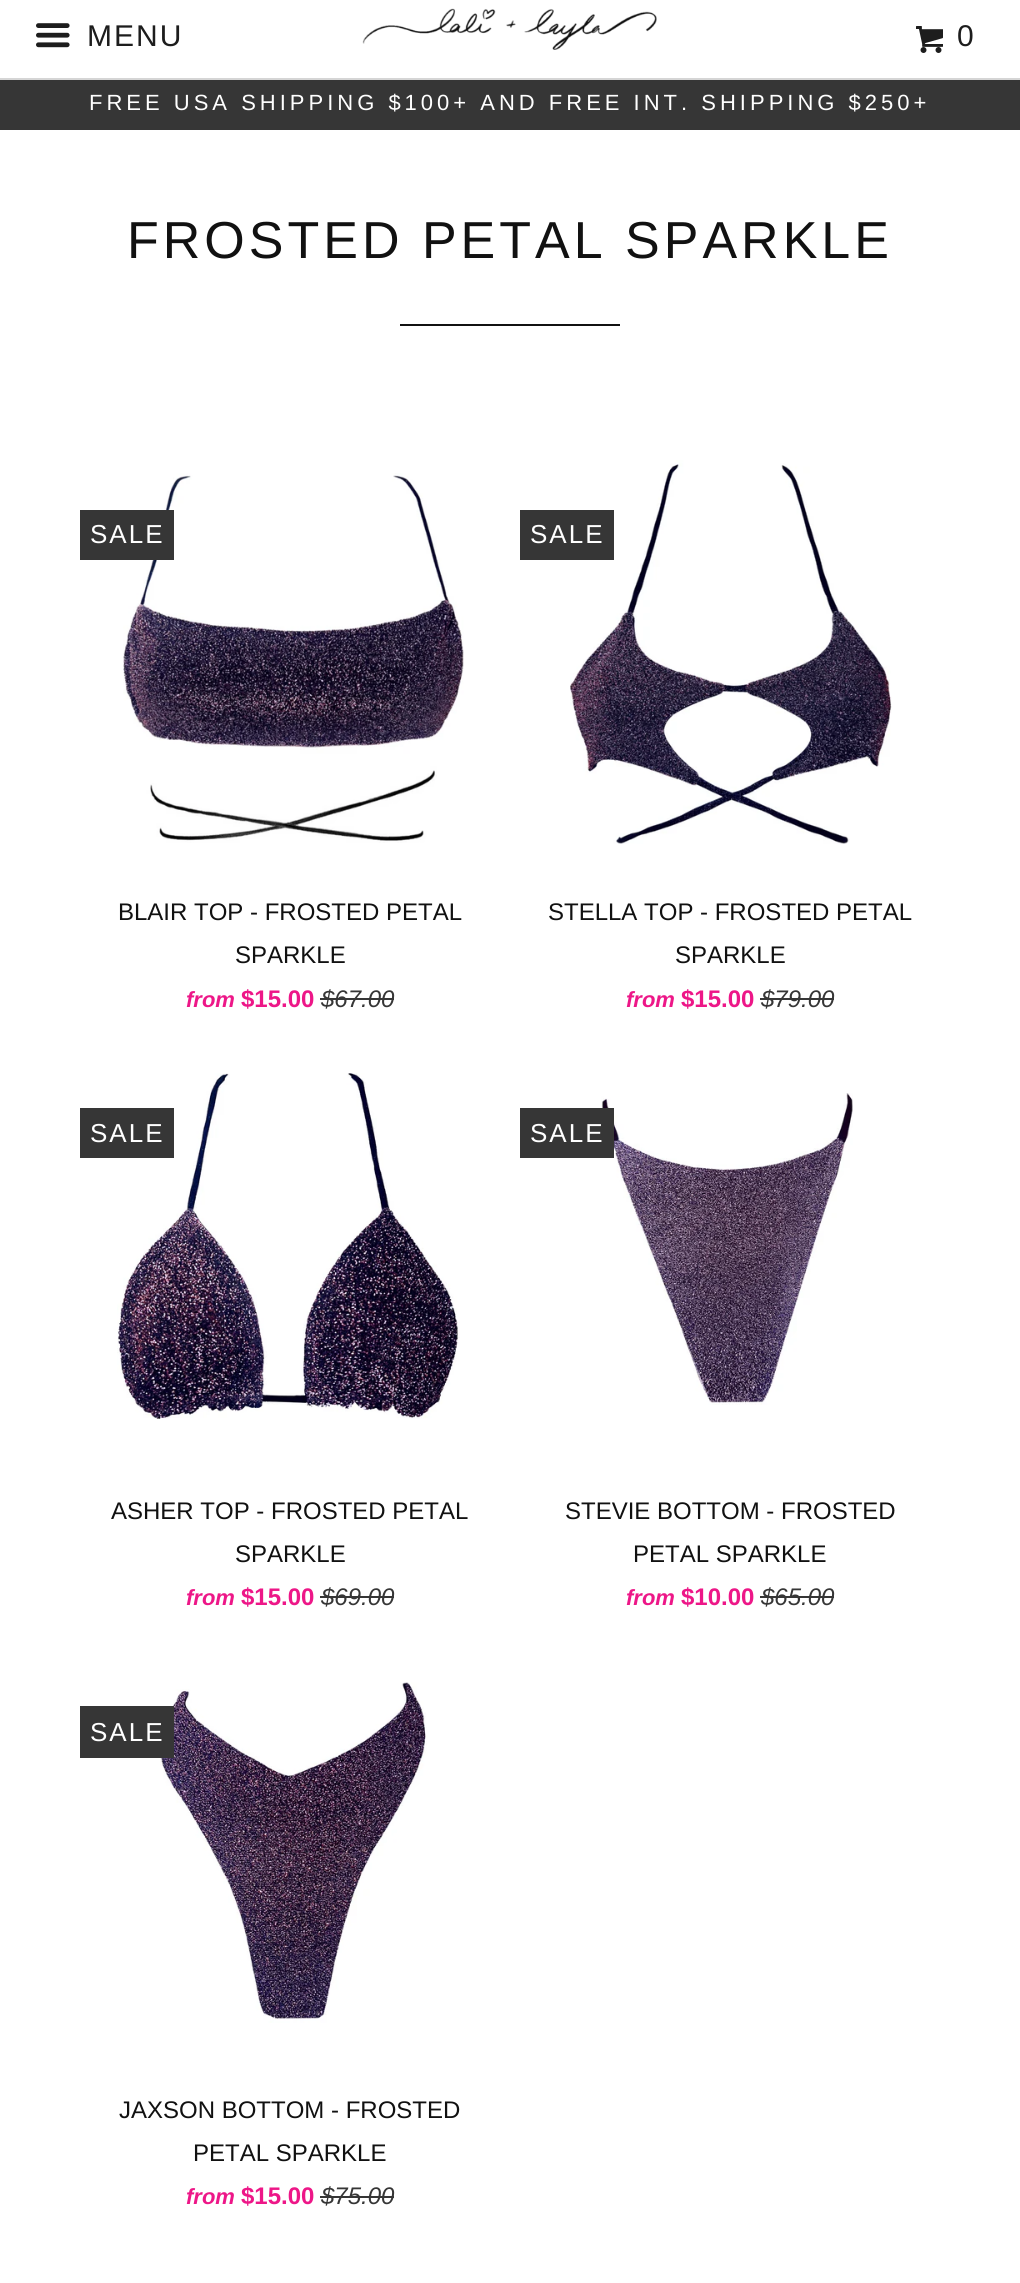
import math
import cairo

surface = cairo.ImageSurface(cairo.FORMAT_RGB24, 1020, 2283)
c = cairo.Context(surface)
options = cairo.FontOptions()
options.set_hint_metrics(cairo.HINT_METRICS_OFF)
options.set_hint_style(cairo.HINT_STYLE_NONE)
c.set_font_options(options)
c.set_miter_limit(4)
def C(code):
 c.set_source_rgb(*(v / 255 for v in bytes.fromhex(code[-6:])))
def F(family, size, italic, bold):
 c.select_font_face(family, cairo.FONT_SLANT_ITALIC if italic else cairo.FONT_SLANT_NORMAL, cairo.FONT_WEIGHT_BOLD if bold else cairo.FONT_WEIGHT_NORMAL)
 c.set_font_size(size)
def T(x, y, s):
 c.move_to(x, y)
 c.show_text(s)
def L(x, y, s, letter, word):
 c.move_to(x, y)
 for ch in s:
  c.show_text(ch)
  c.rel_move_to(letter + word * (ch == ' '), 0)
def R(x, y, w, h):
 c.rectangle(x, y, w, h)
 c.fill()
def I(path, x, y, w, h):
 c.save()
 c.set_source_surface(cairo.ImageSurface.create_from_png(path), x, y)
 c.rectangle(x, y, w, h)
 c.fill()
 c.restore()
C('ffffff')
c.paint()
C('d5d5d5')
R(0,78,1020,2)
I('1.png',36,23,34,25)
F('Liberation Sans',30,0,0)
C('1d1d1d')
L(87,46,'MENU',2,0)
I('2.png',362,8,295,42)
I('3.png',916,26,27,27)
L(957,46,'0',2,0)
F('Liberation Sans',52,0,0)
C('111111')
L(127,258,'FROSTED PETAL SPARKLE',4,0)
R(400,324,220,2)
I('4.png',123,473,341,370)
C('363636')
R(80,510,94,50)
F('Liberation Sans',26,0,0)
C('ffffff')
L(90,543,'SALE',2,0)
F('Liberation Sans',24,0,0)
C('111111')
T(118,920,'BLAIR TOP - FROSTED PETAL')
T(235,963,'SPARKLE')
F('Liberation Sans',22,1,1)
C('ed1788')
T(186,1007,'from')
F('Liberation Sans',24,0,1)
T(241,1007,'$15.00')
F('Liberation Sans',24,1,0)
C('363636')
T(321,1007,'$67.00')
R(320,998,74,2)
I('5.png',570,460,322,384)
R(520,510,94,50)
F('Liberation Sans',26,0,0)
C('ffffff')
L(530,543,'SALE',2,0)
F('Liberation Sans',24,0,0)
C('111111')
T(548,920,'STELLA TOP - FROSTED PETAL')
T(675,963,'SPARKLE')
F('Liberation Sans',22,1,1)
C('ed1788')
T(626,1007,'from')
F('Liberation Sans',24,0,1)
T(681,1007,'$15.00')
F('Liberation Sans',24,1,0)
C('363636')
T(761,1007,'$79.00')
R(760,998,74,2)
I('6.png',117,1073,343,346)
R(80,1108,94,50)
F('Liberation Sans',26,0,0)
C('ffffff')
L(90,1142,'SALE',2,0)
F('Liberation Sans',24,0,0)
C('111111')
T(111,1519,'ASHER TOP - FROSTED PETAL')
T(235,1562,'SPARKLE')
F('Liberation Sans',22,1,1)
C('ed1788')
T(186,1605,'from')
F('Liberation Sans',24,0,1)
T(241,1605,'$15.00')
F('Liberation Sans',24,1,0)
C('363636')
T(321,1605,'$69.00')
R(320,1596,74,2)
I('7.png',601,1093,252,312)
R(520,1108,94,50)
F('Liberation Sans',26,0,0)
C('ffffff')
L(530,1142,'SALE',2,0)
F('Liberation Sans',24,0,0)
C('111111')
T(565,1519,'STEVIE BOTTOM - FROSTED')
T(633,1562,'PETAL SPARKLE')
F('Liberation Sans',22,1,1)
C('ed1788')
T(626,1605,'from')
F('Liberation Sans',24,0,1)
T(681,1605,'$10.00')
F('Liberation Sans',24,1,0)
C('363636')
T(761,1605,'$65.00')
R(760,1596,74,2)
I('8.png',160,1682,268,341)
R(80,1706,94,52)
F('Liberation Sans',26,0,0)
C('ffffff')
L(90,1741,'SALE',2,0)
F('Liberation Sans',24,0,0)
C('111111')
T(119,2118,'JAXSON BOTTOM - FROSTED')
T(193,2161,'PETAL SPARKLE')
F('Liberation Sans',22,1,1)
C('ed1788')
T(186,2204,'from')
F('Liberation Sans',24,0,1)
T(241,2204,'$15.00')
F('Liberation Sans',24,1,0)
C('363636')
T(321,2204,'$75.00')
R(320,2196,74,2)
R(0,80,1020,50)
F('Liberation Sans',22,0,0)
C('ffffff')
L(89,110,'FREE USA SHIPPING $100+ AND FREE INT. SHIPPING $250+',4,0)
surface.write_to_png('o.png')
